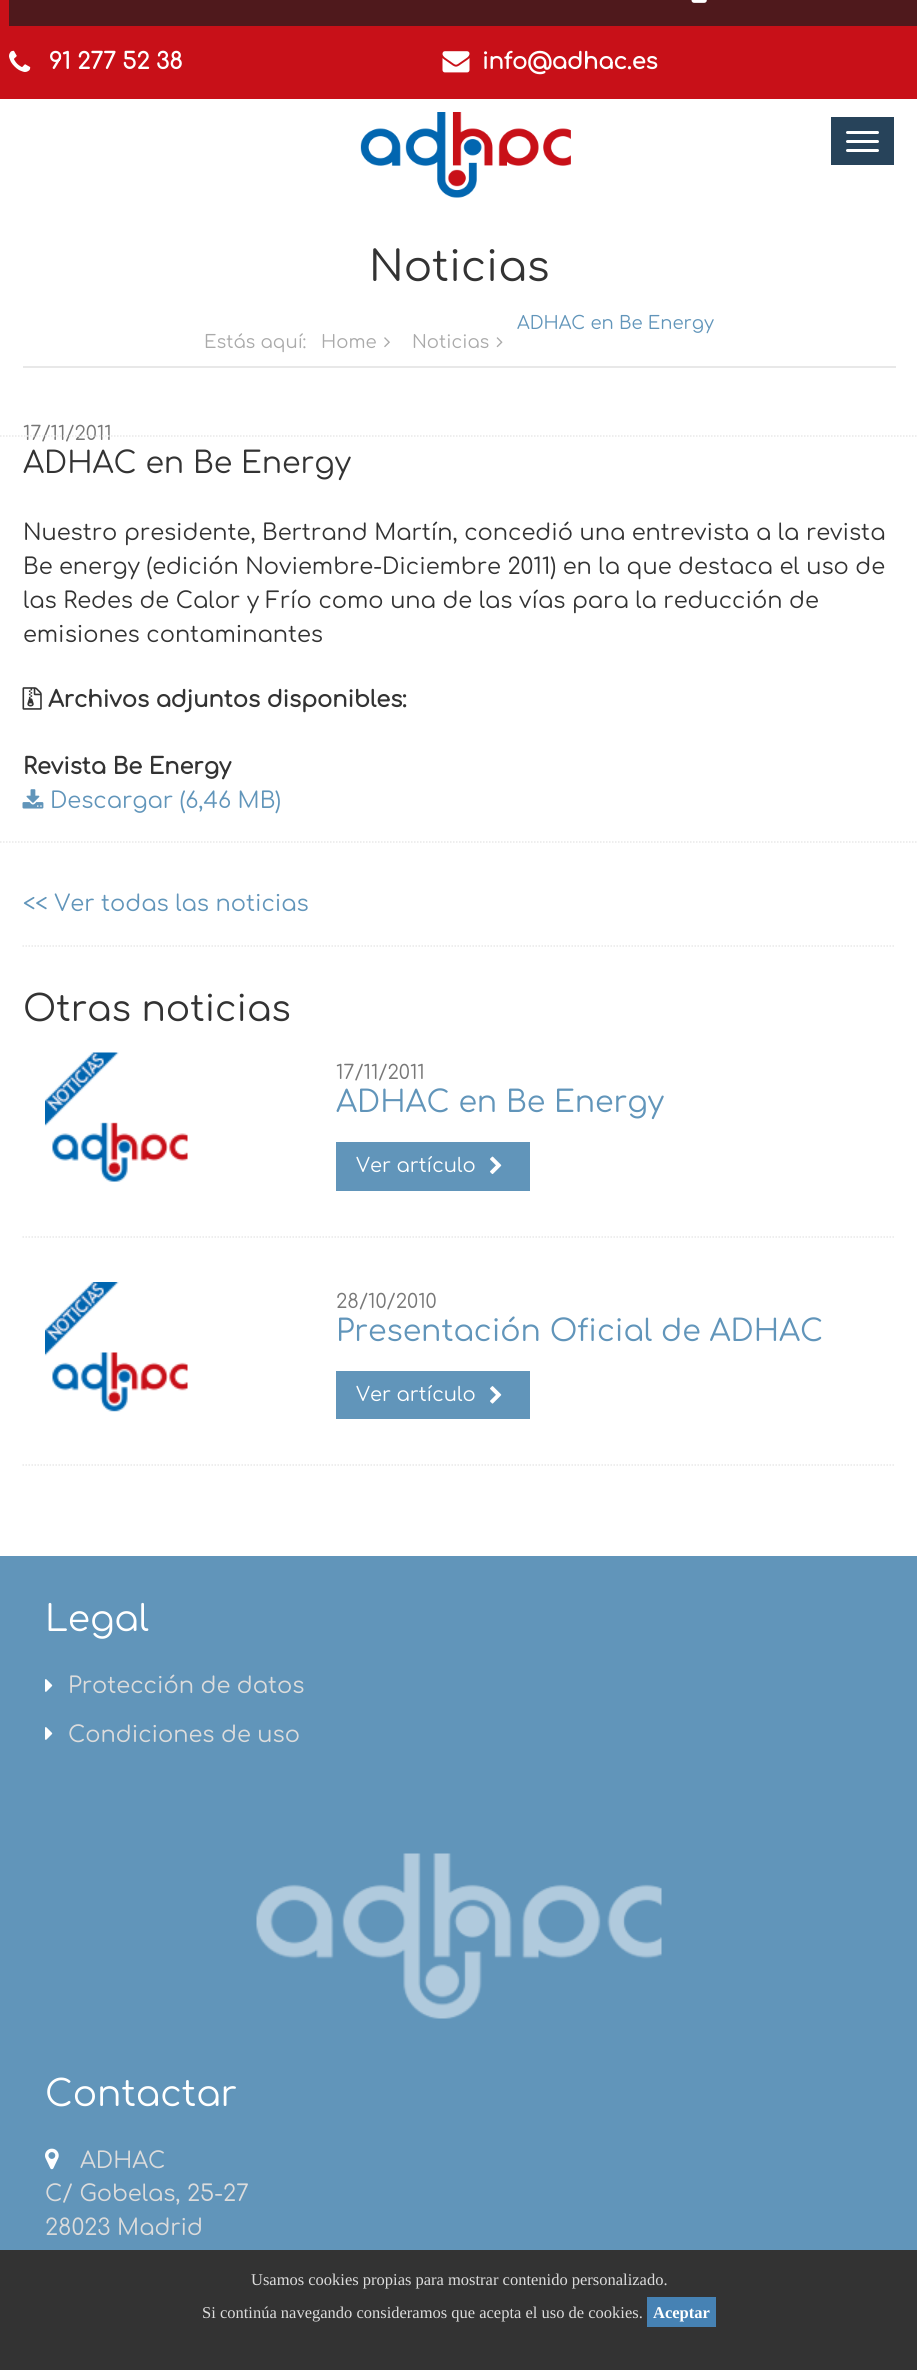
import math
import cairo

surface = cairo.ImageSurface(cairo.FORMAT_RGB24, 917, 2370)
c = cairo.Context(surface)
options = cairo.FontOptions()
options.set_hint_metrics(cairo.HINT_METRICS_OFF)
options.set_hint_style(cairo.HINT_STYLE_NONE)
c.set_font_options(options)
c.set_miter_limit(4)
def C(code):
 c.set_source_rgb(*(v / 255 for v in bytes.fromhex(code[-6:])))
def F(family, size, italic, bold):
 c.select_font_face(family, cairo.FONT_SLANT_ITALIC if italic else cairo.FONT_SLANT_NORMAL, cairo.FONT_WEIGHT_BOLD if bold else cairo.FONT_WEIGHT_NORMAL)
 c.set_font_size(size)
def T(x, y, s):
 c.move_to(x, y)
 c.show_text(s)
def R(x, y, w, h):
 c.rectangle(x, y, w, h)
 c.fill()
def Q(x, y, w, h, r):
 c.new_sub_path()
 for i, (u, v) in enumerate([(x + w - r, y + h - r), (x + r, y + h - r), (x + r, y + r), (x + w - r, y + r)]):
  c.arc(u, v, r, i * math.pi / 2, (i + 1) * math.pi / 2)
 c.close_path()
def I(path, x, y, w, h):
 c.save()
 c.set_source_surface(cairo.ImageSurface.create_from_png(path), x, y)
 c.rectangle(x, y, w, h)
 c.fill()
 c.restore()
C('ffffff')
c.paint()
C('c81018')
R(0,0,917,99)
C('4f191c')
R(9,0,908,26)
I('1.png',691,0,16,3)
I('2.png',9,50,22,22)
F('Comfortaa',22.5,0,1)
C('ffffff')
T(49,69,'91 277 52 38')
I('3.png',442,51,28,22)
T(482,69,'info@adhac.es')
I('4.png',360,112,211,86)
C('27435a')
R(831,117,63,48)
C('ffffff')
Q(846,131,33,3,1.5)
c.fill()
Q(846,140,33,3,1.5)
c.fill()
Q(846,149,33,3,1.5)
c.fill()
C('e8e8e8')
R(23,366,873,2)
F('Comfortaa',42,0,0)
C('333333')
T(369,281,'Noticias')
F('Comfortaa',18,0,0)
C('6195ba')
T(517,329,'ADHAC en Be Energy')
C('aaaaaa')
T(204,348,'Estás aquí:')
T(321,348,'Home')
I('5.png',384,337,6,11)
T(412,348,'Noticias')
I('6.png',496,337,7,11)
c.new_path()
c.move_to(0,842)
c.line_to(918,842)
C('e8e8e8')
c.set_line_width(1.5)
c.set_dash([1.5,1.5])
c.stroke()
F('Comfortaa',19.5,0,0)
C('777777')
T(23,440,'17/11/2011')
F('Comfortaa',30,0,0)
C('333333')
T(23,473,'ADHAC en Be Energy')
F('Comfortaa',22.5,0,0)
T(23,540,'Nuestro presidente, Bertrand Martín, concedió una entrevista a la revista')
T(23,574,'Be energy (edición Noviembre-Diciembre 2011) en la que destaca el uso de')
T(23,608,'las Redes de Calor y Frío como una de las vías para la reducción de')
T(23,642,'emisiones contaminantes')
c.new_path()
c.move_to(0,436)
c.line_to(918,436)
C('e8e8e8')
c.stroke()
I('7.png',22,687,20,23)
F('Comfortaa',22.5,0,1)
C('333333')
T(48,707,'Archivos adjuntos disponibles:')
T(23,774,'Revista Be Energy')
I('8.png',22,789,22,20)
F('Comfortaa',22.5,0,0)
C('6195ba')
T(50,808,'Descargar (6,46 MB)')
c.new_path()
c.move_to(22.5,946)
c.line_to(895.5,946)
C('e8e8e8')
c.stroke()
C('6195ba')
T(23,911,'<< Ver todas las noticias')
F('Comfortaa',36,0,0)
C('333333')
T(23,1021,'Otras noticias')
c.new_path()
c.move_to(22.5,1237)
c.line_to(895.5,1237)
C('e8e8e8')
c.stroke()
I('9.png',45,1052,143,130)
F('Comfortaa',19.5,0,0)
C('777777')
T(336,1079,'17/11/2011')
F('Comfortaa',30,0,0)
C('6195ba')
T(336,1112,'ADHAC en Be Energy')
R(336,1142,194,49)
F('Comfortaa',19.5,0,0)
C('ffffff')
T(356,1172,'Ver artículo')
I('10.png',490,1156,12,19)
c.new_path()
c.move_to(22.5,1465)
c.line_to(895.5,1465)
C('e8e8e8')
c.stroke()
I('11.png',45,1282,143,130)
C('777777')
T(336,1308,'28/10/2010')
F('Comfortaa',30,0,0)
C('6195ba')
T(336,1341,'Presentación Oficial de ADHAC')
R(336,1371,194,48)
F('Comfortaa',19.5,0,0)
C('ffffff')
T(356,1401,'Ver artículo')
I('12.png',490,1386,12,18)
C('6195ba')
R(0,1556,917,694)
F('Comfortaa',36,0,0)
C('ffffff')
T(45,1631,'Legal')
I('13.png',45,1679,8,13)
F('Comfortaa',22.5,0,0)
C('dcdcdc')
T(68,1693,'Protección de datos')
I('13.png',45,1727,8,13)
T(68,1742,'Condiciones de uso')
I('14.png',256,1853,406,166)
F('Comfortaa',36,0,0)
C('ffffff')
T(45,2106,'Contactar')
I('15.png',45,2148,14,22)
F('Comfortaa',22.5,0,0)
C('dcdcdc')
T(80,2168,'ADHAC')
T(45,2201,'C/ Gobelas, 25-27')
T(45,2235,'28023 Madrid')
C('333333')
R(0,2250,917,120)
F('Liberation Serif',16.5,0,0)
C('dcdcdc')
T(251,2285,'Usamos cookies propias para mostrar contenido personalizado.')
T(202,2318,'Si continúa navegando consideramos que acepta el uso de cookies.')
C('4682b4')
R(647,2297,69,30)
F('Liberation Serif',16.5,0,1)
C('ffffff')
T(653,2318,'Aceptar')
surface.write_to_png('o.png')
